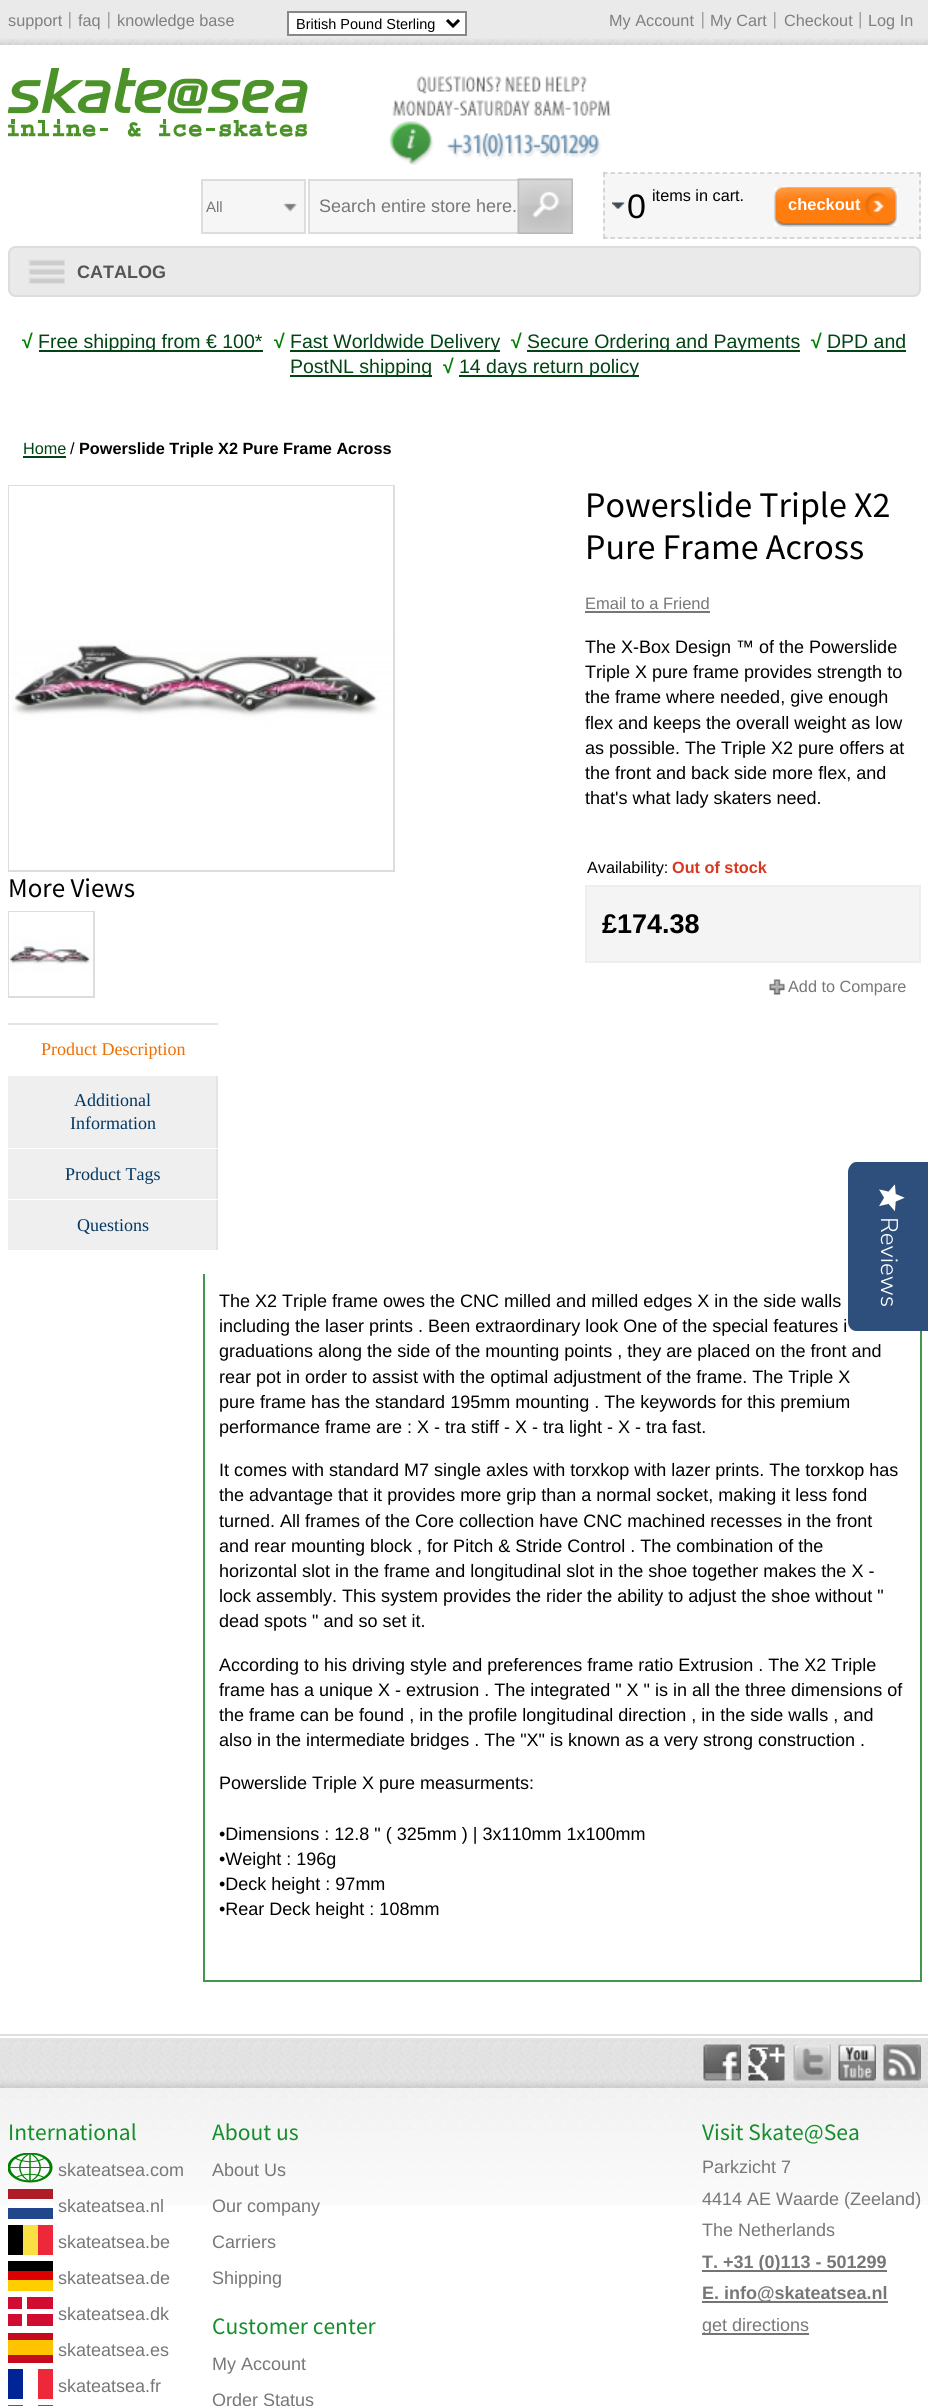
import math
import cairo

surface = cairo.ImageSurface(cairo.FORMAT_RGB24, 928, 2406)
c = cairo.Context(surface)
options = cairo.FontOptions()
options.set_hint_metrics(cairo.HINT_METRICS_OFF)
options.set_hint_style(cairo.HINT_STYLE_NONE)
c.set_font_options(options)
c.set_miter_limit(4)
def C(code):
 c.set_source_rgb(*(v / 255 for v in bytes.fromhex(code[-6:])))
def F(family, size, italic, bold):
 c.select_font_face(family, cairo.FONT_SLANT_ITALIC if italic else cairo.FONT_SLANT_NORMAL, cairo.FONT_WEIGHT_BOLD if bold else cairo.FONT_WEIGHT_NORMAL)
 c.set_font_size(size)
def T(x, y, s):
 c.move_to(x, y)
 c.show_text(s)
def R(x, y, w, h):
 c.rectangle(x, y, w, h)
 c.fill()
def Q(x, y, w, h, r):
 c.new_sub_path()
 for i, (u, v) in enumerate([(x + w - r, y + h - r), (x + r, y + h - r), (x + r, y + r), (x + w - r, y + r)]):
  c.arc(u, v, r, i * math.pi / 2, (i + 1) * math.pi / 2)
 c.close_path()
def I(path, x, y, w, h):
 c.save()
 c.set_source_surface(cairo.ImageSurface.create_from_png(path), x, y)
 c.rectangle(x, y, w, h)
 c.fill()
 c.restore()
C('ffffff')
c.paint()
C('eaeaea')
R(0,0,928,38)
I('1.png',0,38,928,7)
F('Liberation Sans',16.25,0,0)
C('7f7f7f')
T(8,26,'support')
I('2.png',69,12,2,17)
T(78,26,'faq')
I('2.png',108,12,2,17)
T(117,26,'knowledge base')
C('ffffff')
c.rectangle(288,12,178,23)
c.fill_preserve()
C('888888')
c.stroke()
c.new_path()
c.move_to(447,20)
c.line_to(453,26)
c.line_to(459,20)
C('000000')
c.set_line_width(3)
c.stroke()
F('Liberation Sans',14.5,0,0)
T(296,29,'British Pound Sterling')
F('Liberation Sans',16.25,0,0)
C('7f7f7f')
T(609,26,'My Account')
I('2.png',702,12,2,17)
T(710,26,'My Cart')
I('2.png',774,12,2,17)
T(784,26,'Checkout')
I('3.png',859,12,2,17)
T(868,26,'Log In')
I('4.png',8,68,300,69)
I('5.png',389,76,222,89)
C('f6f6f6')
c.rectangle(202,180,103,53)
c.fill_preserve()
C('dddddd')
c.set_line_width(2)
c.stroke()
F('Liberation Sans',15,0,0)
C('777777')
T(206,212,'All')
I('6.png',283,203,14,9)
C('f6f6f6')
R(310,181,208,51)
c.rectangle(309,180,211,53)
C('dddddd')
c.stroke()
F('Liberation Sans',18,0,0)
C('777777')
T(319,212,'Search entire store here.')
I('7.png',517,178,56,56)
C('f6f6f6')
R(603,173,318,66)
c.new_path()
c.move_to(603,173)
c.line_to(921,173)
C('cbcbcb')
c.set_line_width(1.5)
c.set_dash([4.5,2.97])
c.stroke()
c.new_path()
c.move_to(920,172.5)
c.line_to(920,238.5)
c.set_dash([4.5,3.18])
c.stroke()
c.new_path()
c.move_to(603,238)
c.line_to(921,238)
c.set_dash([4.5,2.97])
c.stroke()
c.new_path()
c.move_to(604,172.5)
c.line_to(604,238.5)
c.set_dash([4.5,3.18])
c.stroke()
I('8.png',612,202,13,7)
F('Liberation Sans',34,0,0)
C('000000')
T(627,218,'0')
F('Liberation Sans',16.25,0,0)
T(652,201,'items in cart.')
I('9.png',774,187,123,40)
I('10.png',786,187,111,40)
F('Liberation Sans',16.5,0,1)
C('ffffff')
T(788,210,'checkout')
C('eaeaea')
Q(8,246,913,51,8)
c.fill()
I('11.png',28,259,37,25)
Q(9,247,911,49,7)
C('dddddd')
c.set_line_width(2)
c.set_dash([])
c.stroke()
F('Liberation Sans',18,0,1)
C('555555')
T(77,278,'CATALOG')
F('Liberation Sans',19.5,0,1)
C('008000')
T(22,348,'√')
C('024413')
R(39,350,224,2)
F('Liberation Sans',19.5,0,0)
T(38,348,'Free shipping from € 100*')
F('Liberation Sans',19.5,0,1)
C('008000')
T(274,348,'√')
C('024413')
R(290,350,210,2)
F('Liberation Sans',19.5,0,0)
T(290,348,'Fast Worldwide Delivery')
F('Liberation Sans',19.5,0,1)
C('008000')
T(511,348,'√')
C('024413')
R(527,350,273,2)
F('Liberation Sans',19.5,0,0)
T(527,348,'Secure Ordering and Payments')
F('Liberation Sans',19.5,0,1)
C('008000')
T(811,348,'√')
F('Liberation Sans',19.5,0,0)
C('024413')
T(827,348,'DPD and')
R(827,350,79,2)
R(290,375,142,2)
T(290,373,'PostNL shipping')
F('Liberation Sans',19.5,0,1)
C('008000')
T(443,373,'√')
C('024413')
R(459,375,180,2)
F('Liberation Sans',19.5,0,0)
T(459,373,'14 days return policy')
C('dadcdd')
R(0,2034,928,2)
F('Liberation Sans',16.25,0,0)
C('024413')
T(23,454,'Home')
R(23,456,43,2)
C('000000')
T(70,454,'/')
F('Liberation Sans',16.25,0,1)
T(79,454,'Powerslide Triple X2 Pure Frame Across')
c.rectangle(9,486,385,385)
C('dddddd')
c.stroke()
I('12.png',9,486,384,384)
F('Source Sans Pro',27,0,0)
C('000000')
T(8,897,'More Views')
c.rectangle(9,912,85,85)
C('dddddd')
c.stroke()
I('13.png',9,912,84,84)
F('Source Sans Pro',36,0,0)
C('000000')
T(585,517,'Powerslide Triple X2')
T(585,559,'Pure Frame Across')
F('Liberation Sans',16.5,0,0)
C('777777')
T(585,609,'Email to a Friend')
R(585,611,125,2)
F('Liberation Sans',18,0,0)
C('000000')
T(585,653,'The X-Box Design ™ of the Powerslide')
T(585,678,'Triple X pure frame provides strength to')
T(585,703,'the frame where needed, give enough')
T(585,729,'flex and keeps the overall weight as low')
T(585,754,'as possible. The Triple X2 pure offers at')
T(585,779,'the front and back side more flex, and')
T(585,804,'that\'s what lady skaters need.')
C('f4f4f4')
c.rectangle(586,886,334,76)
c.fill_preserve()
C('eeeeee')
c.stroke()
F('Liberation Sans',16.25,0,0)
C('000000')
T(587,873,'Availability:')
F('Liberation Sans',16.25,0,1)
C('d83820')
T(672,873,'Out of stock')
F('Liberation Sans',27,0,1)
C('000000')
T(602,933,'£174.38')
I('14.png',769,979,16,16)
F('Liberation Sans',16.25,0,0)
C('777777')
T(788,992,'Add to Compare')
C('e3e3e3')
R(8,1023,210,2)
F('Liberation Serif',18,0,0)
C('ef6e00')
T(41,1055,'Product Description')
C('e3e3e3')
R(216,1076,2,175)
C('ffffff')
R(216,1148,2,1)
C('efefef')
R(8,1076,208,72)
C('023761')
T(74,1106,'Additional')
T(70,1129,'Information')
C('ffffff')
R(216,1199,2,1)
C('efefef')
R(8,1149,208,50)
C('023761')
T(65,1180,'Product Tags')
C('ffffff')
R(216,1250,2,1)
C('efefef')
R(8,1200,208,50)
C('023761')
T(77,1231,'Questions')
C('42974b')
R(920,1331,2,651)
R(203,1980,718,2)
R(203,1274,2,708)
F('Liberation Sans',18,0,0)
C('000000')
T(219,1307,'The X2 Triple frame owes the CNC milled and milled edges X in the side walls')
T(219,1332,'including the laser prints . Been extraordinary look One of the special features i')
T(219,1357,'graduations along the side of the mounting points , they are placed on the front and')
T(219,1383,'rear pot in order to assist with the optimal adjustment of the frame. The Triple X')
T(219,1408,'pure frame has the standard 195mm mounting . The keywords for this premium')
T(219,1433,'performance frame are : X - tra stiff - X - tra light - X - tra fast.')
T(219,1476,'It comes with standard M7 single axles with torxkop with lazer prints. The torxkop has')
T(219,1501,'the advantage that it provides more grip than a normal socket, making it less fond')
T(219,1527,'turned. All frames of the Core collection have CNC machined recesses in the front')
T(219,1552,'and rear mounting block , for Pitch & Stride Control . The combination of the')
T(219,1577,'horizontal slot in the frame and longitudinal slot in the shoe together makes the X -')
T(219,1602,'lock assembly. This system provides the rider the ability to adjust the shoe without "')
T(219,1627,'dead spots " and so set it.')
T(219,1671,'According to his driving style and preferences frame ratio Extrusion . The X2 Triple')
T(219,1696,'frame has a unique X - extrusion . The integrated " X " is in all the three dimensions of')
T(219,1721,'the frame can be found , in the profile longitudinal direction , in the side walls , and')
T(219,1746,'also in the intermediate bridges . The "X" is known as a very strong construction .')
T(219,1789,'Powerslide Triple X pure measurments:')
T(219,1840,'•Dimensions : 12.8 " ( 325mm ) | 3x110mm 1x100mm')
T(219,1865,'•Weight : 196g')
T(219,1890,'•Deck height : 97mm')
T(219,1915,'•Rear Deck height : 108mm')
I('15.png',0,2035,928,53)
C('ffffff')
R(0,2036,928,2)
I('16.png',703,2044,38,37)
I('17.png',748,2044,37,37)
I('18.png',793,2044,38,37)
I('19.png',838,2044,38,37)
I('20.png',883,2044,38,37)
I('21.png',0,2088,928,117)
F('Source Sans Pro',23.5,0,0)
C('158e2c')
T(8,2140,'International')
I('22.png',8,2153,45,30)
F('Liberation Sans',18,0,0)
C('777777')
T(58,2176,'skateatsea.com')
C('ae1c28')
R(8,2189,45,10)
C('ffffff')
R(8,2199,45,6)
C('777777')
T(58,2212,'skateatsea.nl')
C('21468b')
R(8,2208,45,11)
C('000000')
R(8,2225,15,30)
C('fae042')
R(23,2225,15,30)
C('ed2939')
R(38,2225,15,30)
C('777777')
T(58,2248,'skateatsea.be')
C('000000')
R(8,2261,45,10)
C('dd0000')
R(8,2271,45,9)
C('777777')
T(58,2284,'skateatsea.de')
C('ffce00')
R(8,2280,45,11)
C('d00c33')
R(8,2297,45,29)
C('ffffff')
R(22,2297,5,29)
C('777777')
T(58,2320,'skateatsea.dk')
C('ffffff')
R(8,2309,45,5)
C('c60b1e')
R(8,2333,45,30)
C('ffc400')
R(8,2340,45,15)
C('777777')
T(58,2356,'skateatsea.es')
C('002395')
R(8,2369,15,30)
C('ed2939')
R(38,2369,15,30)
C('777777')
T(58,2392,'skateatsea.fr')
C('009246')
R(8,2405,15,1)
C('ce2b37')
R(38,2405,15,1)
F('Source Sans Pro',23.5,0,0)
C('158e2c')
T(212,2140,'About us')
F('Liberation Sans',18,0,0)
C('777777')
T(212,2176,'About Us')
T(212,2212,'Our company')
T(212,2248,'Carriers')
T(212,2284,'Shipping')
F('Source Sans Pro',23.5,0,0)
C('158e2c')
T(212,2334,'Customer center')
F('Liberation Sans',18,0,0)
C('777777')
T(212,2370,'My Account')
T(212,2406,'Order Status')
F('Source Sans Pro',23.5,0,0)
C('158e2c')
T(702,2140,'Visit Skate@Sea')
F('Liberation Sans',18,0,0)
C('777777')
T(702,2173,'Parkzicht 7')
T(702,2205,'4414 AE Waarde (Zeeland)')
T(702,2236,'The Netherlands')
C('747474')
R(702,2270,185,2)
F('Liberation Sans',18,0,1)
C('777777')
T(702,2268,'T. +31 (0)113 - 501299')
C('747474')
R(702,2301,186,2)
C('777777')
T(702,2299,'E. info@skateatsea.nl')
C('747474')
R(702,2333,107,2)
F('Liberation Sans',18,0,0)
C('777777')
T(702,2331,'get directions')
C('2e4f7c')
c.new_path()
c.move_to(928,1162)
c.line_to(928,1331)
c.line_to(856,1331)
c.curve_to(852,1331,848,1327,848,1322)
c.line_to(848,1172)
c.curve_to(848,1167,852,1162,856,1162)
c.close_path()
c.fill()
I('23.png',879,1184,26,27)
F('Nunito Sans Light',24,0,0)
C('ffffff')
c.save()
c.translate(881,1217)
c.rotate(90 * math.pi / 180)
T(0,0,'Reviews')
c.restore()
surface.write_to_png('o.png')
